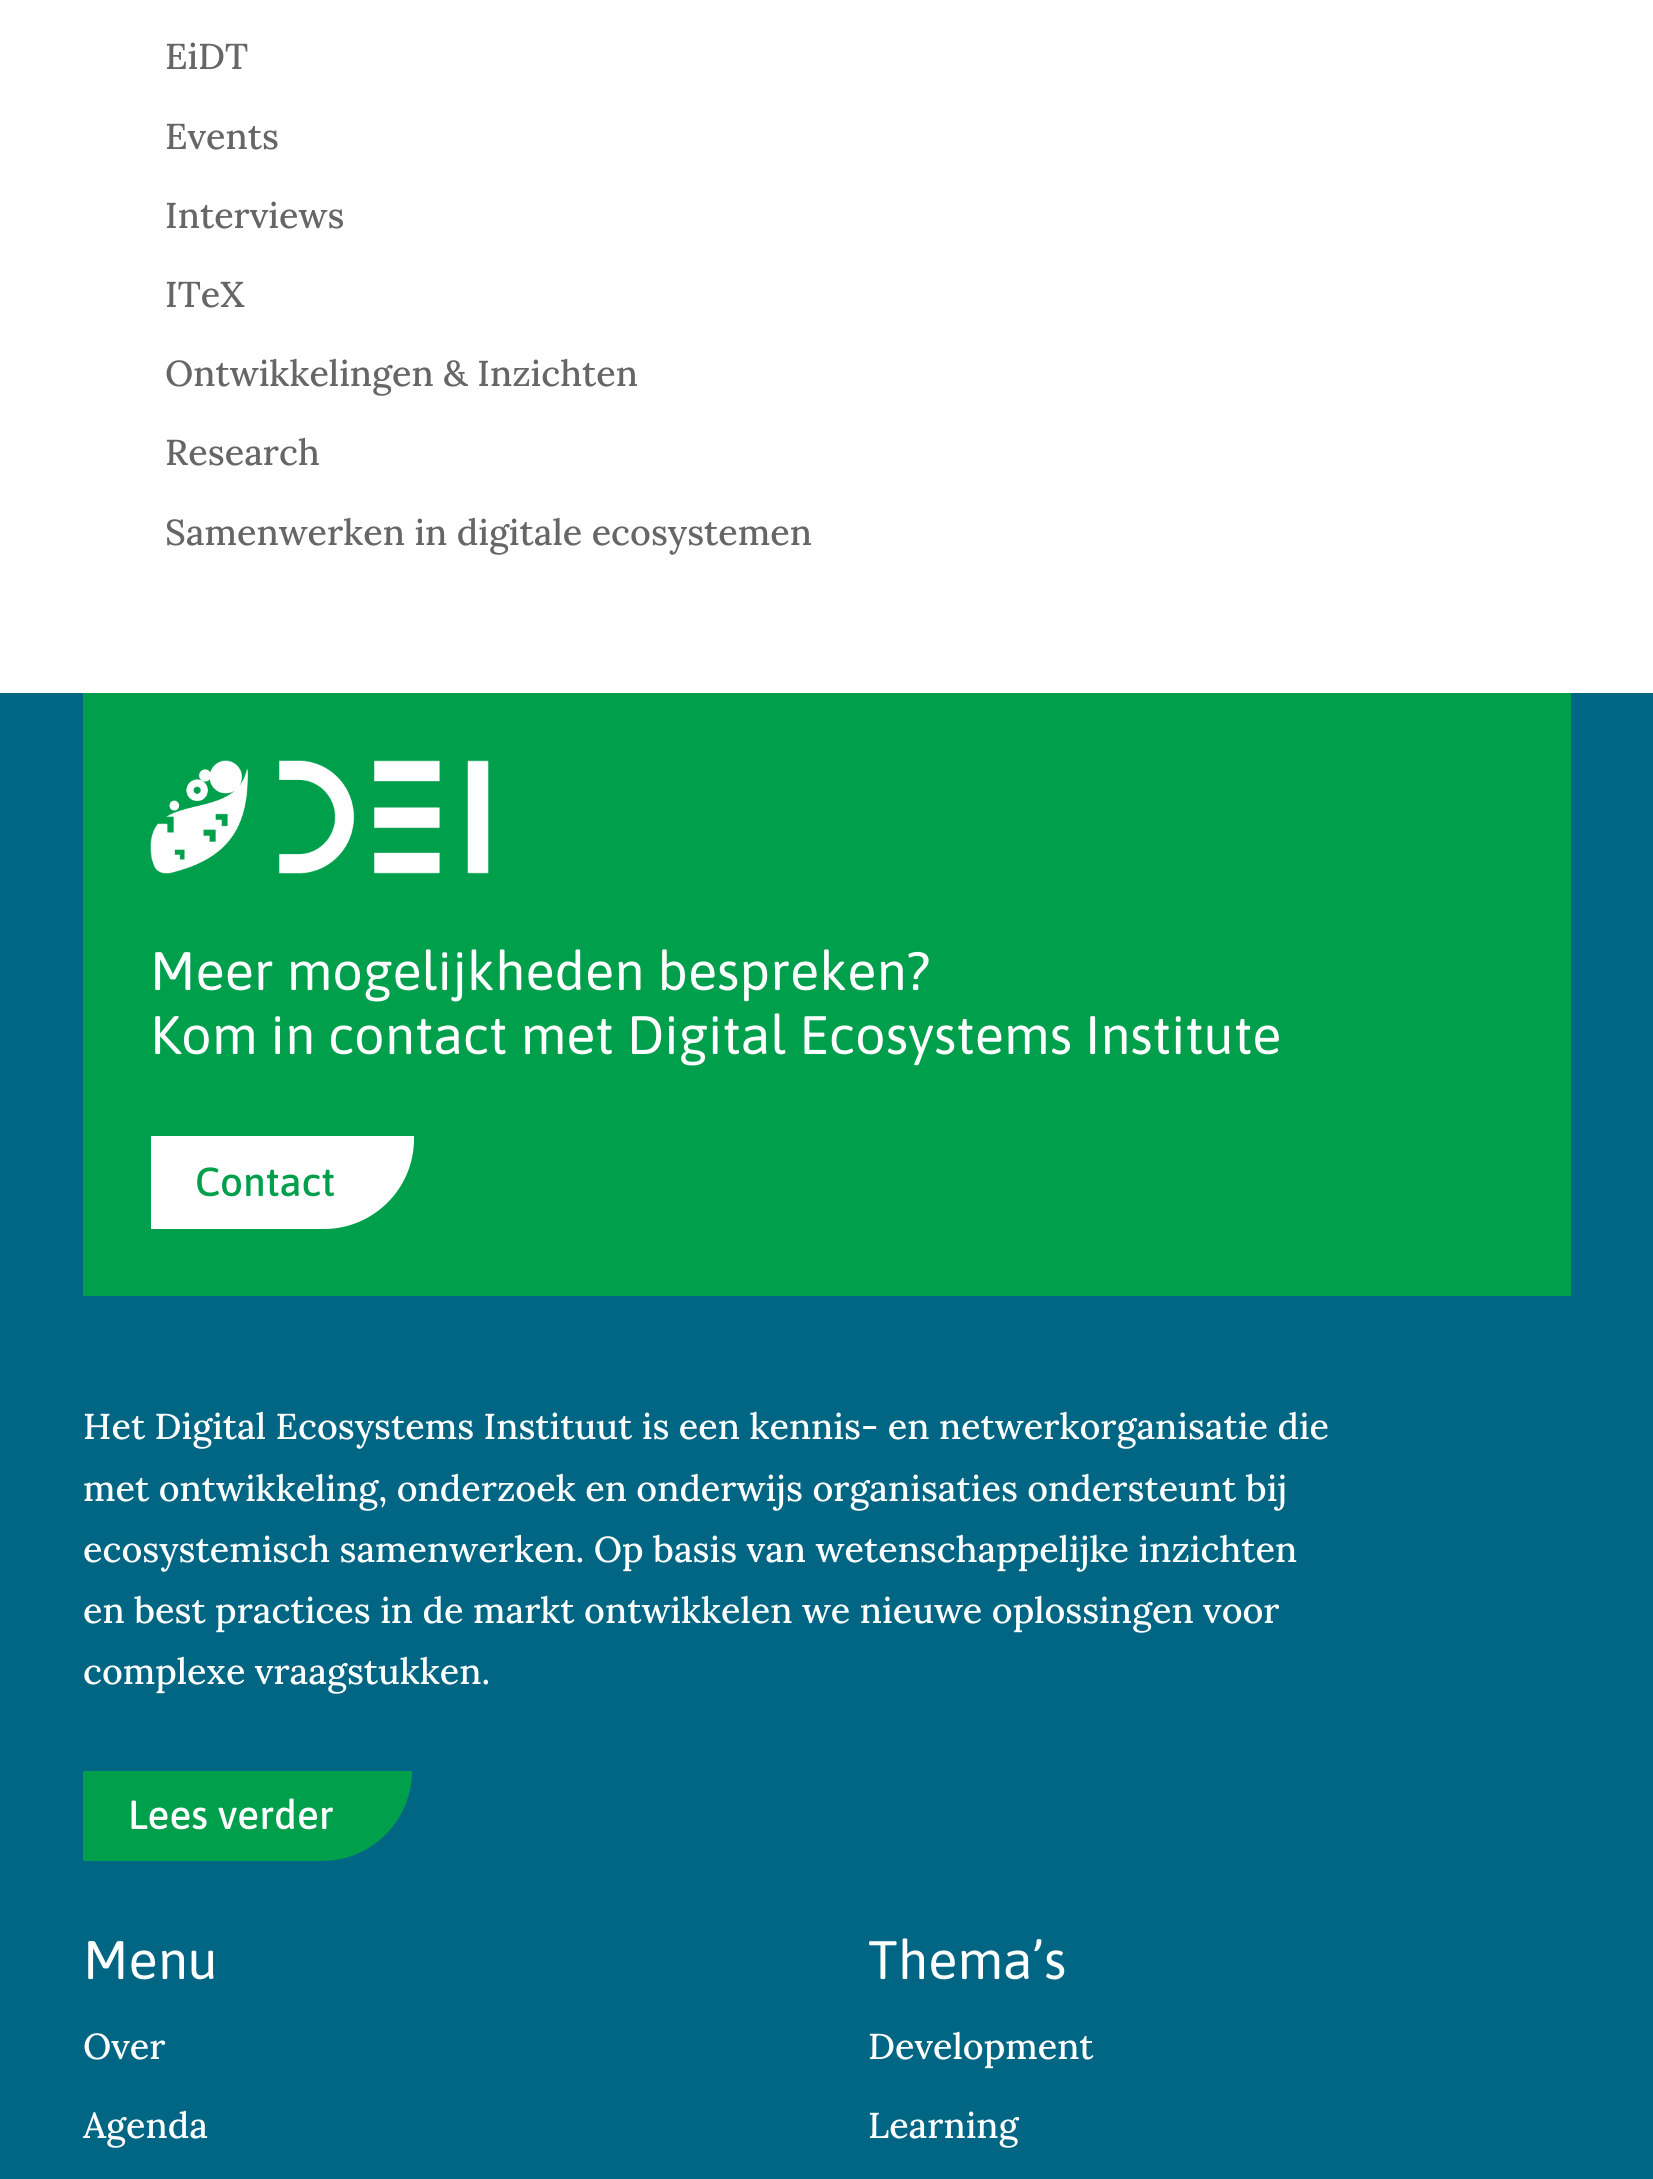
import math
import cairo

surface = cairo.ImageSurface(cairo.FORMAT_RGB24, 1653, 2179)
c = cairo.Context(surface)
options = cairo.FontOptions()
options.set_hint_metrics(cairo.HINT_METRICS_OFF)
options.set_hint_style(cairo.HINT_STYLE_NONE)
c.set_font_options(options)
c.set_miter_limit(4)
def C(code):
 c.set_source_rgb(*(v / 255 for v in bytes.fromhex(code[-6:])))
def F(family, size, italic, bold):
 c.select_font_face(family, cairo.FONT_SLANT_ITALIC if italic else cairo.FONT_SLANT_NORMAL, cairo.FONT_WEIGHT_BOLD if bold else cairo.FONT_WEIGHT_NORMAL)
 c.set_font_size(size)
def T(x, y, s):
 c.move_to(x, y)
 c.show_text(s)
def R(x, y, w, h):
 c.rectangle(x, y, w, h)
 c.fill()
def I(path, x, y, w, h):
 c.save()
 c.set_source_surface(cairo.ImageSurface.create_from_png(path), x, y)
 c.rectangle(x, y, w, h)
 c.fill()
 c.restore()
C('ffffff')
c.paint()
F('Lora Medium',36,0,0)
C('666666')
T(165,69,'EiDT')
T(165,149,'Events')
T(165,228,'Interviews')
T(165,307,'ITeX')
T(165,386,'Ontwikkelingen & Inzichten')
T(165,465,'Research')
T(165,545,'Samenwerken in digitale ecosystemen')
C('006684')
R(0,693,1653,1486)
C('009f4c')
R(83,693,1488,603)
I('1.png',150,760,339,114)
F('Asap',54,0,0)
C('ffffff')
T(150,990,'Meer mogelijkheden bespreken?')
T(150,1054,'Kom in contact met Digital Ecosystems Institute')
c.new_path()
c.move_to(151,1136)
c.line_to(414,1136)
c.line_to(414,1139)
c.curve_to(414,1188.5,373.5,1229,324,1229)
c.line_to(151,1229)
c.close_path()
c.fill()
F('Asap Medium',40.5,0,0)
C('009f4c')
T(195,1196,'Contact')
F('Lora Medium',36,0,0)
C('ffffff')
T(83,1439,'Het Digital Ecosystems Instituut is een kennis- en netwerkorganisatie die')
T(83,1501,'met ontwikkeling, onderzoek en onderwijs organisaties ondersteunt bij')
T(83,1562,'ecosystemisch samenwerken. Op basis van wetenschappelijke inzichten')
T(83,1623,'en best practices in de markt ontwikkelen we nieuwe oplossingen voor')
T(83,1684,'complexe vraagstukken.')
C('009f4c')
c.new_path()
c.move_to(83,1771)
c.line_to(412,1771)
c.curve_to(412,1820.5,371.5,1861,322,1861)
c.line_to(83,1861)
c.close_path()
c.fill()
F('Asap Medium',40.5,0,0)
C('ffffff')
T(128,1829,'Lees verder')
F('Asap',54,0,0)
T(83,1979,'Menu')
F('Lora Medium',36,0,0)
T(83,2059,'Over')
T(83,2138,'Agenda')
F('Asap',54,0,0)
T(868,1979,'Thema’s')
F('Lora Medium',36,0,0)
T(868,2059,'Development')
T(868,2138,'Learning')
surface.write_to_png('o.png')
